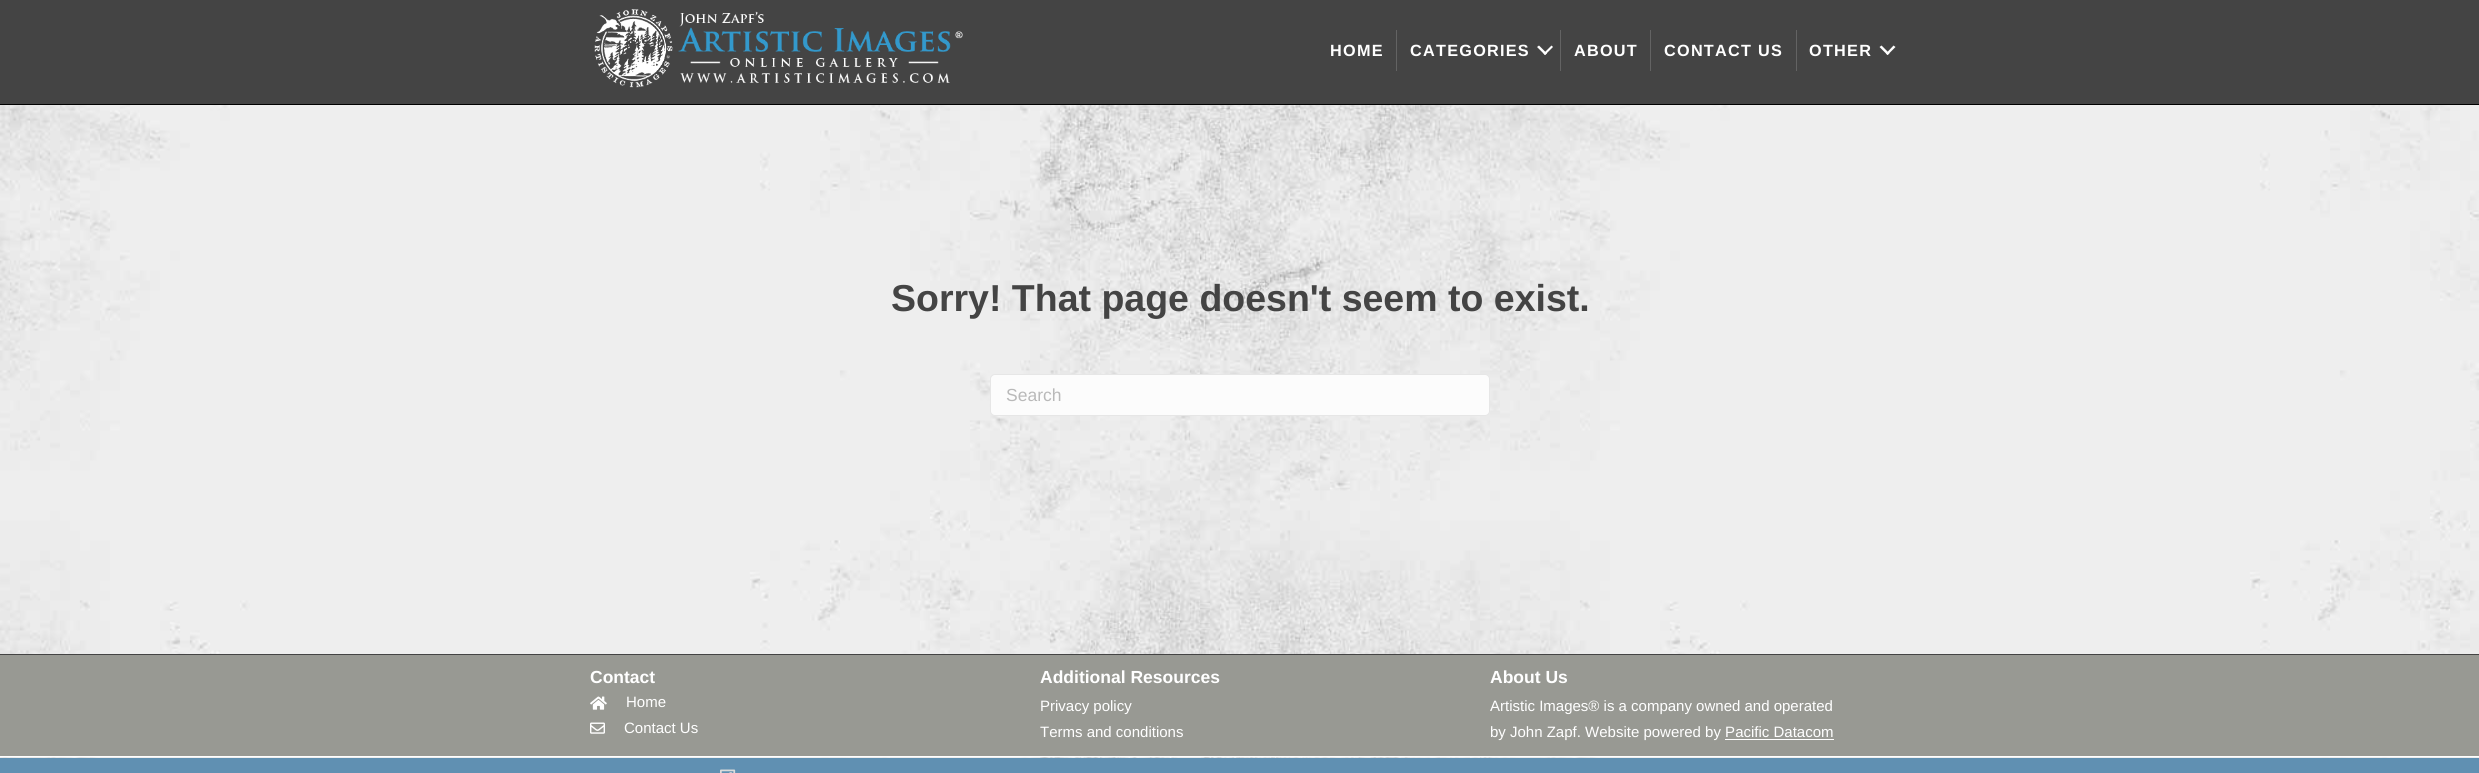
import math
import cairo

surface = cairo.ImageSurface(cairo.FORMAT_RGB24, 2479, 773)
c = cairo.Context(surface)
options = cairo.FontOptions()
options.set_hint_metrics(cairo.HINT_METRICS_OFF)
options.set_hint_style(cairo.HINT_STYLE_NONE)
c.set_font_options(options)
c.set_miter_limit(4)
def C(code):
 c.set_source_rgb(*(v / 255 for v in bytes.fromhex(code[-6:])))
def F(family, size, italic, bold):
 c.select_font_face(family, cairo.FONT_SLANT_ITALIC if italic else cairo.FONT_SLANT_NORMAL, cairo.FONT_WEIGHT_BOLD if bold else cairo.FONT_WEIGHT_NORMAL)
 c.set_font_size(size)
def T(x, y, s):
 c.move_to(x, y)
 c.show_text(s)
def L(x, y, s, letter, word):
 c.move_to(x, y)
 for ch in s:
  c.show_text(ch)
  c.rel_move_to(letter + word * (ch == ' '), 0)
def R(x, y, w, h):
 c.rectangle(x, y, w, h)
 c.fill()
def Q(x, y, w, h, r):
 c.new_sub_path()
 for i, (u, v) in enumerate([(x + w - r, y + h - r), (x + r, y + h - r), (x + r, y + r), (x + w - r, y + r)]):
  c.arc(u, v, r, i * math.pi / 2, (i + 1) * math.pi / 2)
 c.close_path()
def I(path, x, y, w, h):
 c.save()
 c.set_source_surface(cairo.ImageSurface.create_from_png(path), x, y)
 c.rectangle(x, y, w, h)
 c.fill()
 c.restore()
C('ffffff')
c.paint()
I('1.png',0,105,2479,653)
C('444444')
R(0,0,2479,104)
C('000000')
R(0,104,2479,1)
I('2.png',594,9,369,79)
F('Liberation Sans',16.25,0,1)
C('ffffff')
L(1330,56,'HOME',1.25,0)
C('636363')
R(1396,30,1,41)
C('ffffff')
L(1410,56,'CATEGORIES',1.25,0)
c.new_path()
c.move_to(1551.5,45.5)
c.line_to(1553,47)
c.line_to(1545,55)
c.line_to(1543.5,53.5)
c.close_path()
c.fill()
c.new_path()
c.move_to(1539,45.5)
c.line_to(1547,53.5)
c.line_to(1545,55)
c.line_to(1537,47)
c.close_path()
c.fill()
C('636363')
R(1560,30,1,41)
C('ffffff')
L(1574,56,'ABOUT',1.25,0)
C('636363')
R(1650,30,1,41)
C('ffffff')
L(1664,56,'CONTACT US',1.25,0)
C('636363')
R(1796,30,1,41)
C('ffffff')
L(1809,56,'OTHER',1.25,0)
c.new_path()
c.move_to(1893.5,45.5)
c.line_to(1895.5,47)
c.line_to(1887.5,55)
c.line_to(1886,53.5)
c.close_path()
c.fill()
c.new_path()
c.move_to(1881.5,45.5)
c.line_to(1889.5,53.5)
c.line_to(1887.5,55)
c.line_to(1879.5,47)
c.close_path()
c.fill()
F('Liberation Sans',37.5,0,1)
C('444444')
T(891,311,'Sorry! That page doesn\'t seem to exist.')
C('fcfcfc')
Q(990.5,374.5,499,41,4.5)
c.fill_preserve()
C('e6e6e6')
c.set_line_width(1)
c.stroke()
F('Liberation Sans',17.5,0,0)
C('b9b9b9')
T(1006,401,'Search')
C('989993')
R(0,655,2479,101)
C('444444')
R(0,654,2479,1)
F('Liberation Sans',17.5,0,1)
C('ffffff')
T(590,683,'Contact')
I('3.png',590,696,17,14)
F('Liberation Sans',15,0,0)
T(626,707,'Home')
I('4.png',590,722,15,12)
T(624,733,'Contact Us')
F('Liberation Sans',17.5,0,1)
T(1040,683,'Additional Resources')
F('Liberation Sans',15,0,0)
T(1040,711,'Privacy policy')
T(1040,737,'Terms and conditions')
F('Liberation Sans',17.5,0,1)
T(1490,683,'About Us')
F('Liberation Sans',15,0,0)
T(1490,711,'Artistic Images® is a company owned and operated')
T(1490,737,'by John Zapf. Website powered by Pacific Datacom')
R(1725,739,109,1)
C('6090b2')
R(0,758,2479,15)
C('ffffff')
R(0,756,2479,1)
I('5.png',720,769,16,4)
surface.write_to_png('o.png')
